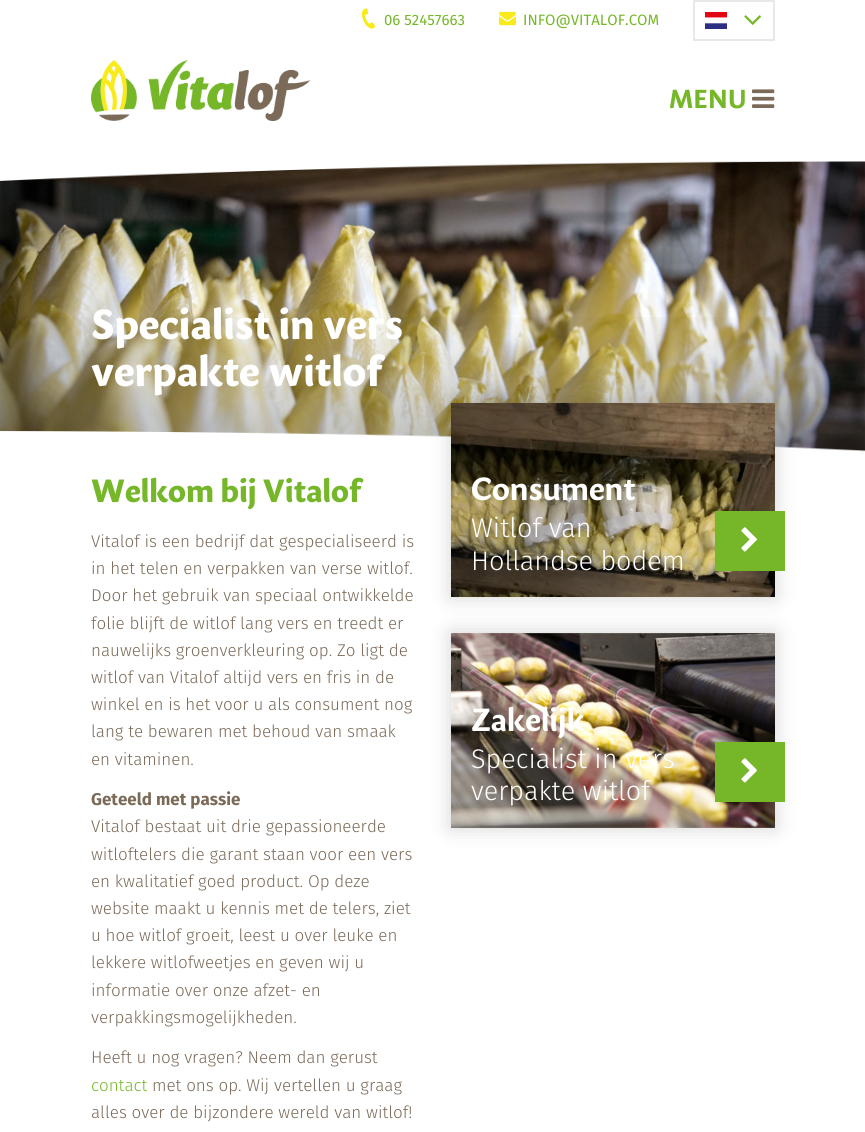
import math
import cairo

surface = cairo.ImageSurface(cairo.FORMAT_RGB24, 865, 1132)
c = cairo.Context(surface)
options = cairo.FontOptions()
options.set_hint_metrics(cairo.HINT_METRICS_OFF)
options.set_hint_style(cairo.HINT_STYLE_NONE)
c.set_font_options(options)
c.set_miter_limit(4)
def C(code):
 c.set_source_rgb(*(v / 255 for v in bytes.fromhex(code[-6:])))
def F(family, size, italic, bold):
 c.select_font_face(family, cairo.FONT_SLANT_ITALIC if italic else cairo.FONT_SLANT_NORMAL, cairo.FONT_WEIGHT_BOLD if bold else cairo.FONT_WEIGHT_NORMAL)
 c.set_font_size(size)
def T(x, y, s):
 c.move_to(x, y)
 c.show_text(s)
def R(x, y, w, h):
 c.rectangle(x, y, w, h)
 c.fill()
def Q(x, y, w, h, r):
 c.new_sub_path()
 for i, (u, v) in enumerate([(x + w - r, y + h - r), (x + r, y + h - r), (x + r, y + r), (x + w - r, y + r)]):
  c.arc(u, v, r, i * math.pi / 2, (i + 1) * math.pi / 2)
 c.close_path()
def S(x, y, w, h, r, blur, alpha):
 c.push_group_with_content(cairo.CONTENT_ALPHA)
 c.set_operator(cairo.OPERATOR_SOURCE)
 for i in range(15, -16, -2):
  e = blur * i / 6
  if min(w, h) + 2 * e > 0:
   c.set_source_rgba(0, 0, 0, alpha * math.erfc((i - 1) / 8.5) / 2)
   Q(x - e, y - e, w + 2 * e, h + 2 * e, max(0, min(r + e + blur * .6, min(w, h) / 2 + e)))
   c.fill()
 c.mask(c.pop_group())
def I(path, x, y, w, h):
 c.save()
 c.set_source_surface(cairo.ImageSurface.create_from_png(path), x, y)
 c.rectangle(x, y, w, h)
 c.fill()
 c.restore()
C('ffffff')
c.paint()
I('1.png',361,8,15,21)
F('Fira Sans',15,0,0)
C('76b729')
T(384,25,'06 52457663')
I('2.png',499,11,17,15)
T(523,25,'INFO@VITALOF.COM')
c.rectangle(694,1,80,39)
C('e8e8e8')
c.stroke()
I('3.png',705,12,22,17)
I('4.png',744,15,17,10)
I('5.png',91,60,219,61)
F('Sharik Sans',26,0,1)
C('76b729')
T(669,108,'MENU')
I('6.png',752,89,23,19)
I('8.png',0,161,865,291)
gradient = cairo.LinearGradient(433,306,433,453)
gradient.add_color_stop_rgba(0,0.122,0.114,0.09,0)
gradient.add_color_stop_rgba(1,0.122,0.114,0.09,.3)
c.set_source(gradient)
R(0,317,865,135)
gradient = cairo.LinearGradient(0,307,130,307)
gradient.add_color_stop_rgba(0,0,0,0,.25)
gradient.add_color_stop_rgba(1,0,0,0,0)
c.set_source(gradient)
R(0,175,119,257)
gradient = cairo.LinearGradient(735,307,865,307)
gradient.add_color_stop_rgba(0,0,0,0,0)
gradient.add_color_stop_rgba(1,0,0,0,.25)
c.set_source(gradient)
R(746,161,119,291)
I('7.png',0,160,865,21)
F('Sharik Sans ExtraBold',42,0,0)
C('ffffff')
T(91,339,'Specialist in vers')
T(91,386,'verpakte witlof')
I('9.png',0,431,865,22)
F('Sharik Sans ExtraBold',32,0,0)
C('76b729')
T(91,502,'Welkom bij Vitalof')
F('Fira Sans Light',17,0,0)
C('7b6a58')
T(91,547,'Vitalof is een bedrijf dat gespecialiseerd is')
T(91,574,'in het telen en verpakken van verse witlof.')
T(91,601,'Door het gebruik van speciaal ontwikkelde')
T(91,629,'folie blijft de witlof lang vers en treedt er')
T(91,656,'nauwelijks groenverkleuring op. Zo ligt de')
T(91,683,'witlof van Vitalof altijd vers en fris in de')
T(91,710,'winkel en is het voor u als consument nog')
T(91,737,'lang te bewaren met behoud van smaak')
T(91,765,'en vitaminen.')
F('Fira Sans',17,0,1)
T(91,805,'Geteeld met passie')
F('Fira Sans Light',17,0,0)
T(91,832,'Vitalof bestaat uit drie gepassioneerde')
T(91,860,'witloftelers die garant staan voor een vers')
T(91,887,'en kwalitatief goed product. Op deze')
T(91,914,'website maakt u kennis met de telers, ziet')
T(91,941,'u hoe witlof groeit, leest u over leuke en')
T(91,968,'lekkere witlofweetjes en geven wij u')
T(91,996,'informatie over onze afzet- en')
T(91,1023,'verpakkingsmogelijkheden.')
T(91,1063,'Heeft u nog vragen? Neem dan gerust')
C('76b729')
T(91,1091,'contact')
C('7b6a58')
T(152,1091,'met ons op. Wij vertellen u graag')
T(91,1118,'alles over de bijzondere wereld van witlof!')
C('1f1d17')
S(451,403,324,194,0,10,.2)
I('10.png',451,403,324,194)
F('Sharik Sans',32,0,1)
C('ffffff')
T(471,500,'Consument')
F('Fira Sans Light',27,0,0)
T(471,537,'Witlof van')
T(471,570,'Hollandse bodem')
C('76b729')
R(715,511,70,60)
I('11.png',741,527,16,25)
C('1f1d17')
S(451,633,324,195,0,10,.2)
I('12.png',451,633,324,195)
F('Sharik Sans',32,0,1)
C('ffffff')
T(471,731,'Zakelijk')
F('Fira Sans Light',27,0,0)
T(471,768,'Specialist in vers')
T(471,800,'verpakte witlof')
C('76b729')
R(715,742,70,60)
I('11.png',741,758,16,25)
surface.write_to_png('o.png')
